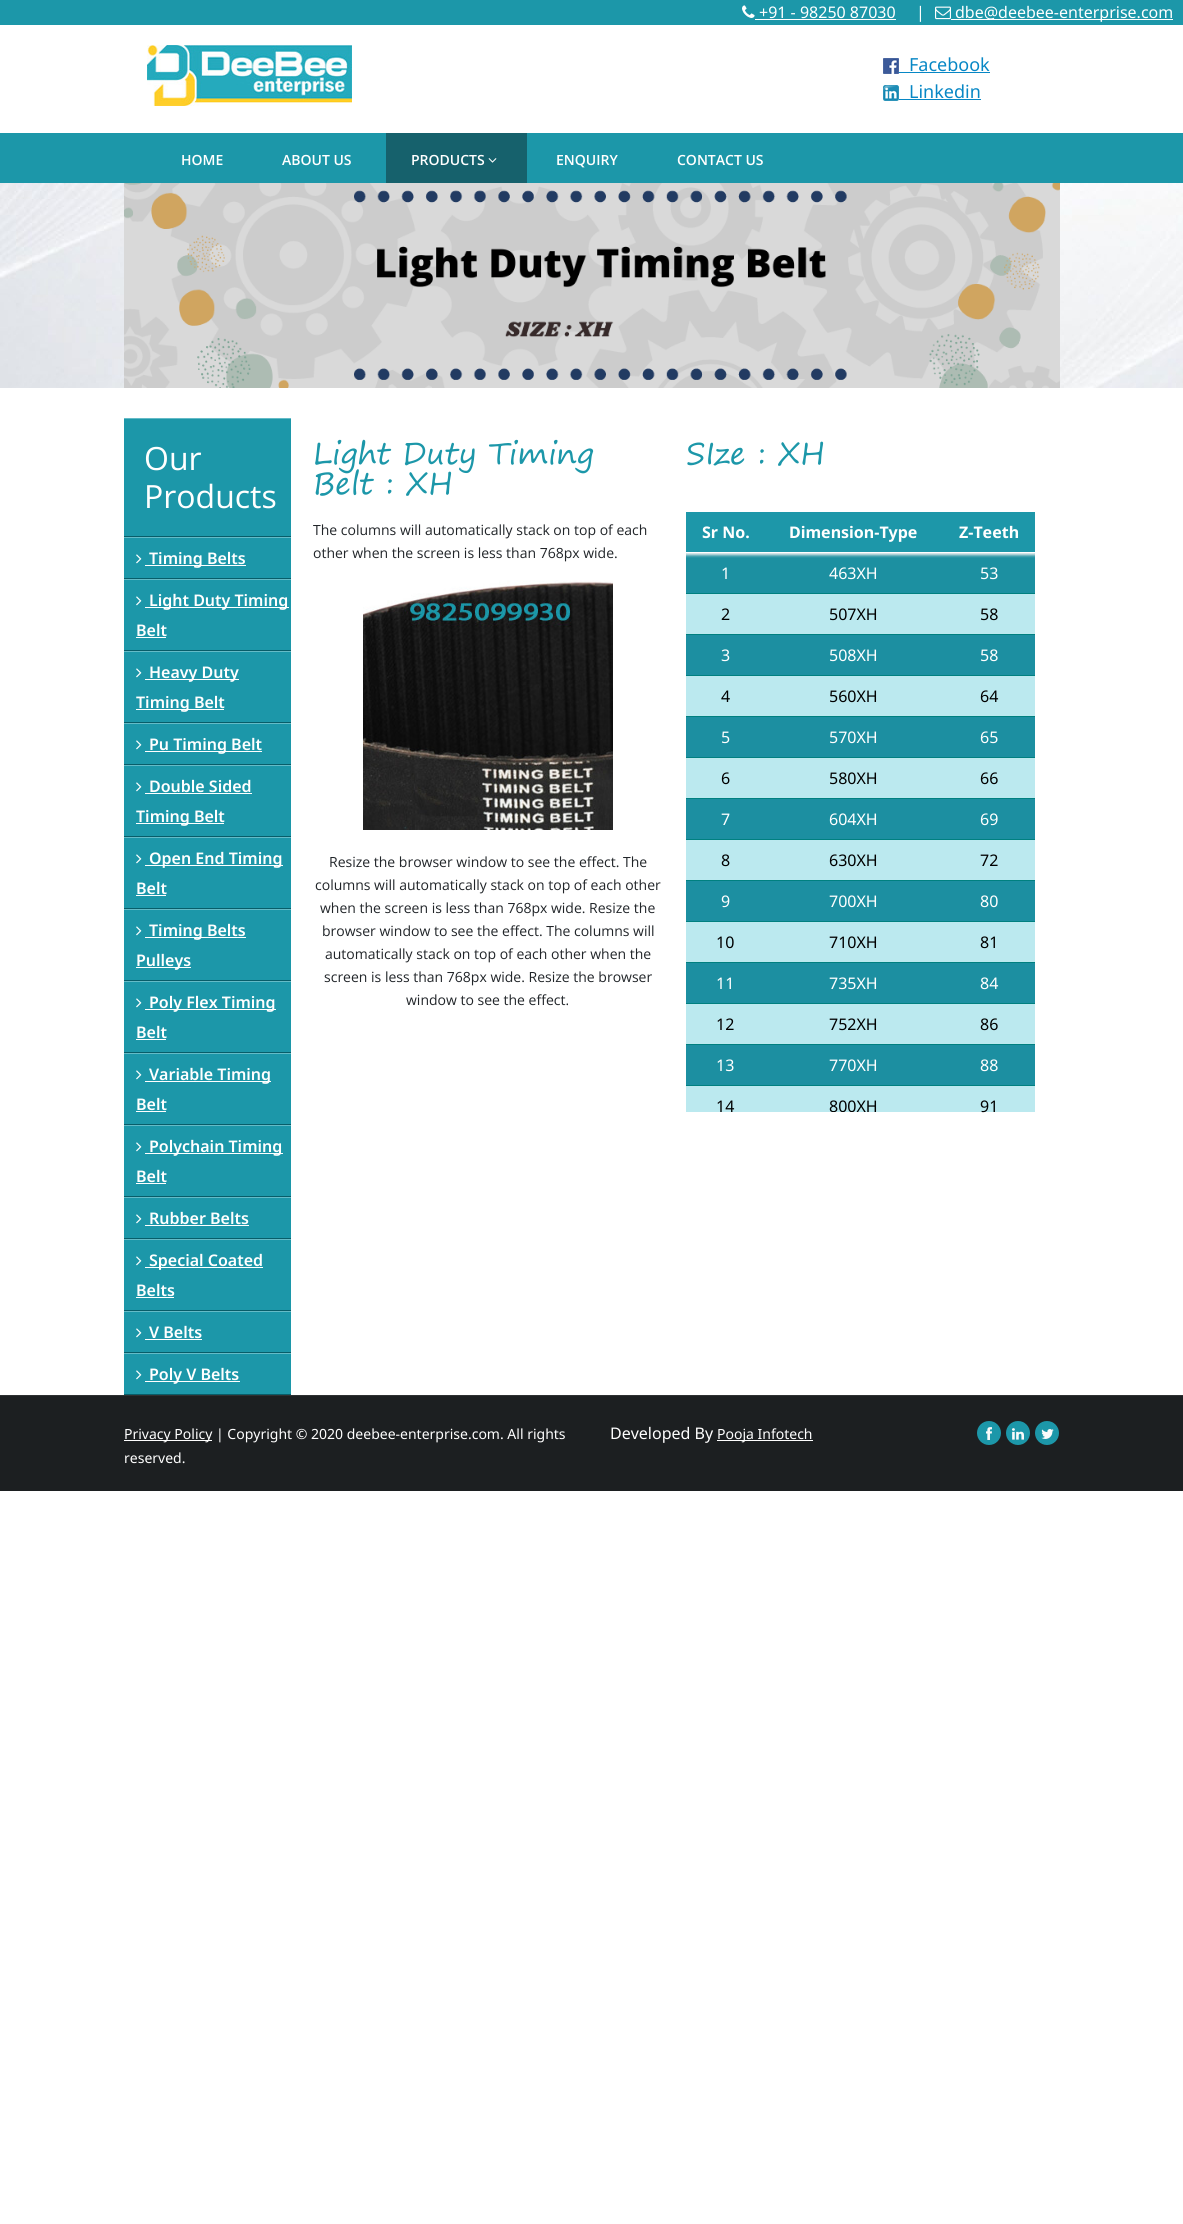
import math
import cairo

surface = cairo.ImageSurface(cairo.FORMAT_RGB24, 1183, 2224)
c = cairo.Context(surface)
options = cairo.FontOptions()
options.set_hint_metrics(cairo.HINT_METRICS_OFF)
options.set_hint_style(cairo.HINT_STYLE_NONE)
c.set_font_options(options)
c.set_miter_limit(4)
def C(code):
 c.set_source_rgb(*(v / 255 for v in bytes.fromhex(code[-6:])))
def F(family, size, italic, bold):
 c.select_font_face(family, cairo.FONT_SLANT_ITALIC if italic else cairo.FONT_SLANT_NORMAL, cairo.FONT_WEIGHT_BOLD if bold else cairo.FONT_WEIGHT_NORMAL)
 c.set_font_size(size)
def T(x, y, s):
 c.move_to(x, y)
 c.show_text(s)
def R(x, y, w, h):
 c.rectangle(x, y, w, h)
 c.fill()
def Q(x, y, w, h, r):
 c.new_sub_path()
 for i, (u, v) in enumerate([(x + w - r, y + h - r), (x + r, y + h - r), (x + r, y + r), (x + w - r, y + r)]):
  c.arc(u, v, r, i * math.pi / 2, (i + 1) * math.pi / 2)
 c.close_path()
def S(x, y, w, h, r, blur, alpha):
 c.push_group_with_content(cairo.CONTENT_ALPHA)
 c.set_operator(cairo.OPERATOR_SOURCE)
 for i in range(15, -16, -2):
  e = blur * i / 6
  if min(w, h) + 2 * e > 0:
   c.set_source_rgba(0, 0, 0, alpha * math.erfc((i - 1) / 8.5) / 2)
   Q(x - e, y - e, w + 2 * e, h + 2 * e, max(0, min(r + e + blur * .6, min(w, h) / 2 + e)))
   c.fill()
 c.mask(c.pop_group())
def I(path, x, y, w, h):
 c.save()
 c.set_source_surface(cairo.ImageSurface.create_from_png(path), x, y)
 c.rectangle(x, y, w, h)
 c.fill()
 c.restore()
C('ffffff')
c.paint()
C('1c97a9')
R(0,0,1183,25)
I('1.png',742,5,13,13)
F('Noto Sans',16,0,0)
C('ffffff')
T(759,18,'+91 - 98250 87030')
R(755,19,141,1)
T(916,18,'|')
I('2.png',935,6,16,14)
R(951,19,222,1)
T(955,18,'dbe@deebee-enterprise.com')
I('3.png',147,45,205,61)
I('4.png',883,58,16,16)
F('Noto Sans',18,0,0)
C('0787c5')
T(909,71,'Facebook')
R(899,72,91,1)
I('5.png',883,85,16,16)
T(909,98,'Linkedin')
R(899,99,82,1)
C('1c97a9')
R(0,133,1183,50)
F('Open Sans SemiBold',14,0,0)
C('ffffff')
T(181,165,'HOME')
T(282,165,'ABOUT US')
C('16616c')
R(386,133,141,50)
C('ffffff')
T(411,165,'PRODUCTS')
I('6.png',488,158,9,5)
T(556,165,'ENQUIRY')
T(677,165,'CONTACT US')
I('7.png',0,183,1183,205)
I('8.png',124,183,936,205)
C('1c97a9')
R(124,419,167,975)
C('64bbc7')
R(124,418,167,1)
C('085d69')
R(124,536,167,1)
F('Open Sans',32,0,0)
C('ffffff')
T(144,470,'Our')
T(144,508,'Products')
C('64bbc7')
R(124,537,167,1)
C('085d69')
R(124,578,167,1)
I('9.png',136,554,6,10)
C('ffffff')
R(145,565,101,1)
F('Noto Sans SemiBold',16,0,0)
T(149,564,'Timing Belts')
C('64bbc7')
R(124,579,167,1)
C('085d69')
R(124,650,167,1)
I('9.png',136,596,6,10)
C('ffffff')
R(145,607,144,1)
T(149,606,'Light Duty Timing')
T(136,636,'Belt')
R(136,637,30,1)
C('64bbc7')
R(124,651,167,1)
C('085d69')
R(124,722,167,1)
I('9.png',136,668,6,10)
C('ffffff')
R(145,679,94,1)
T(149,678,'Heavy Duty')
R(136,709,88,1)
T(136,708,'Timing Belt')
C('64bbc7')
R(124,723,167,1)
C('085d69')
R(124,764,167,1)
I('9.png',136,740,6,10)
C('ffffff')
R(145,751,117,1)
T(149,750,'Pu Timing Belt')
C('64bbc7')
R(124,765,167,1)
C('085d69')
R(124,836,167,1)
I('9.png',136,782,6,10)
C('ffffff')
T(149,792,'Double Sided')
R(145,793,107,1)
R(136,823,88,1)
T(136,822,'Timing Belt')
C('64bbc7')
R(124,837,167,1)
C('085d69')
R(124,908,167,1)
I('9.png',136,854,6,10)
C('ffffff')
R(145,865,138,1)
T(149,864,'Open End Timing')
T(136,894,'Belt')
R(136,895,30,1)
C('64bbc7')
R(124,909,167,1)
C('085d69')
R(124,980,167,1)
I('9.png',136,926,6,10)
C('ffffff')
R(145,937,101,1)
T(149,936,'Timing Belts')
R(136,967,55,1)
T(136,966,'Pulleys')
C('64bbc7')
R(124,981,167,1)
C('085d69')
R(124,1052,167,1)
I('9.png',136,998,6,10)
C('ffffff')
R(145,1009,131,1)
T(149,1008,'Poly Flex Timing')
T(136,1038,'Belt')
R(136,1039,30,1)
C('64bbc7')
R(124,1053,167,1)
C('085d69')
R(124,1124,167,1)
I('9.png',136,1070,6,10)
C('ffffff')
R(145,1081,126,1)
T(149,1080,'Variable Timing')
T(136,1110,'Belt')
R(136,1111,30,1)
C('64bbc7')
R(124,1125,167,1)
C('085d69')
R(124,1196,167,1)
I('9.png',136,1142,6,10)
C('ffffff')
R(145,1153,138,1)
T(149,1152,'Polychain Timing')
T(136,1182,'Belt')
R(136,1183,30,1)
C('64bbc7')
R(124,1197,167,1)
C('085d69')
R(124,1238,167,1)
I('9.png',136,1214,6,10)
C('ffffff')
T(149,1224,'Rubber Belts')
R(145,1225,104,1)
C('64bbc7')
R(124,1239,167,1)
C('085d69')
R(124,1310,167,1)
I('9.png',136,1256,6,10)
C('ffffff')
R(145,1267,118,1)
T(149,1266,'Special Coated')
T(136,1296,'Belts')
R(136,1297,38,1)
C('64bbc7')
R(124,1311,167,1)
C('085d69')
R(124,1352,167,1)
I('9.png',136,1328,6,10)
C('ffffff')
T(149,1338,'V Belts')
R(145,1339,57,1)
C('64bbc7')
R(124,1353,167,1)
C('085d69')
R(124,1394,167,1)
I('9.png',136,1370,6,10)
C('ffffff')
R(145,1381,95,1)
T(149,1380,'Poly V Belts')
F('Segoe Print',30,0,0)
C('1c97a9')
T(313,464,'Light Duty Timing')
T(313,494,'Belt : XH')
F('Open Sans',14,0,0)
C('212529')
T(313,535,'The columns will automatically stack on top of each')
T(313,558,'other when the screen is less than 768px wide.')
I('10.png',363,580,250,250)
T(329,867,'Resize the browser window to see the effect. The')
T(315,890,'columns will automatically stack on top of each other')
T(320,913,'when the screen is less than 768px wide. Resize the')
T(322,936,'browser window to see the effect. The columns will')
T(325,959,'automatically stack on top of each other when the')
T(324,982,'screen is less than 768px wide. Resize the browser')
T(406,1005,'window to see the effect.')
F('Segoe Print',30,0,0)
C('1c97a9')
T(686,464,'SIze : XH')
C('1d97a9')
R(686,512,349,81)
c.save()
c.rectangle(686,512,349,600)
c.clip()
c.rectangle(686,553,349,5)
c.clip()
C('ffffff')
S(685,512,351,43,0,1.5,1)
c.restore()
F('Noto Sans',16,0,1)
C('ffffff')
T(702,538,'Sr No.')
T(789,538,'Dimension-Type')
R(686,552,349,1)
T(959,538,'Z-Teeth')
c.set_source_rgba(0,0,0,0.05)
R(686,553,79,40)
F('Noto Sans',16,0,0)
C('ffffff')
T(721,579,'1')
c.set_source_rgba(0,0,0,0.05)
R(765,553,177,40)
C('ffffff')
T(829,579,'463XH')
c.set_source_rgba(0,0,0,0.05)
R(942,553,93,40)
C('008080')
R(686,593,349,1)
C('ffffff')
T(980,579,'53')
C('bbe9ef')
R(686,594,349,40)
C('000000')
T(721,620,'2')
T(829,620,'507XH')
C('008080')
R(686,634,349,1)
C('000000')
T(980,620,'58')
C('1c8fa1')
R(686,635,349,40)
C('ffffff')
T(721,661,'3')
T(829,661,'508XH')
C('008080')
R(686,675,349,1)
C('ffffff')
T(980,661,'58')
C('bbe9ef')
R(686,676,349,40)
C('000000')
T(721,702,'4')
T(829,702,'560XH')
C('008080')
R(686,716,349,1)
C('000000')
T(980,702,'64')
C('1c8fa1')
R(686,717,349,40)
C('ffffff')
T(721,743,'5')
T(829,743,'570XH')
C('008080')
R(686,757,349,1)
C('ffffff')
T(980,743,'65')
C('bbe9ef')
R(686,758,349,40)
C('000000')
T(721,784,'6')
T(829,784,'580XH')
C('008080')
R(686,798,349,1)
C('000000')
T(980,784,'66')
C('1c8fa1')
R(686,799,349,40)
C('ffffff')
T(721,825,'7')
T(829,825,'604XH')
C('008080')
R(686,839,349,1)
C('ffffff')
T(980,825,'69')
C('bbe9ef')
R(686,840,349,40)
C('000000')
T(721,866,'8')
T(829,866,'630XH')
C('008080')
R(686,880,349,1)
C('000000')
T(980,866,'72')
C('1c8fa1')
R(686,881,349,40)
C('ffffff')
T(721,907,'9')
T(829,907,'700XH')
C('008080')
R(686,921,349,1)
C('ffffff')
T(980,907,'80')
C('bbe9ef')
R(686,922,349,40)
C('000000')
T(716,948,'10')
T(829,948,'710XH')
C('008080')
R(686,962,349,1)
C('000000')
T(980,948,'81')
C('1c8fa1')
R(686,963,349,40)
C('ffffff')
T(716,989,'11')
T(829,989,'735XH')
C('008080')
R(686,1003,349,1)
C('ffffff')
T(980,989,'84')
C('bbe9ef')
R(686,1004,349,40)
C('000000')
T(716,1030,'12')
T(829,1030,'752XH')
C('008080')
R(686,1044,349,1)
C('000000')
T(980,1030,'86')
C('1c8fa1')
R(686,1045,349,40)
C('ffffff')
T(716,1071,'13')
T(829,1071,'770XH')
C('008080')
R(686,1085,349,1)
C('ffffff')
T(980,1071,'88')
C('bbe9ef')
R(686,1086,349,26)
C('000000')
T(716,1112,'14')
c.save()
c.rectangle(686,512,349,600)
c.clip()
T(829,1112,'800XH')
c.restore()
T(980,1112,'91')
C('1c1f21')
R(0,1396,1183,95)
C('2e3132')
R(0,1395,1183,1)
C('ffffff')
R(124,1440,88,1)
F('Noto Sans',14,0,0)
T(124,1439,'Privacy Policy | Copyright © 2020 deebee-enterprise.com. All rights')
T(124,1463,'reserved.')
F('Noto Sans',16,0,0)
T(610,1439,'Developed By')
R(717,1440,96,1)
F('Noto Sans',14,0,0)
T(717,1439,'Pooja Infotech')
C('1c97a9')
c.new_path()
c.arc(989,1433,12,0,2 * math.pi)
c.fill()
I('11.png',986,1427,6,13)
c.arc(1018,1433,12,0,2 * math.pi)
c.fill()
I('12.png',1012,1428,12,12)
c.arc(1047,1433,12,0,2 * math.pi)
c.fill()
I('13.png',1041,1429,13,10)
surface.write_to_png('o.png')
